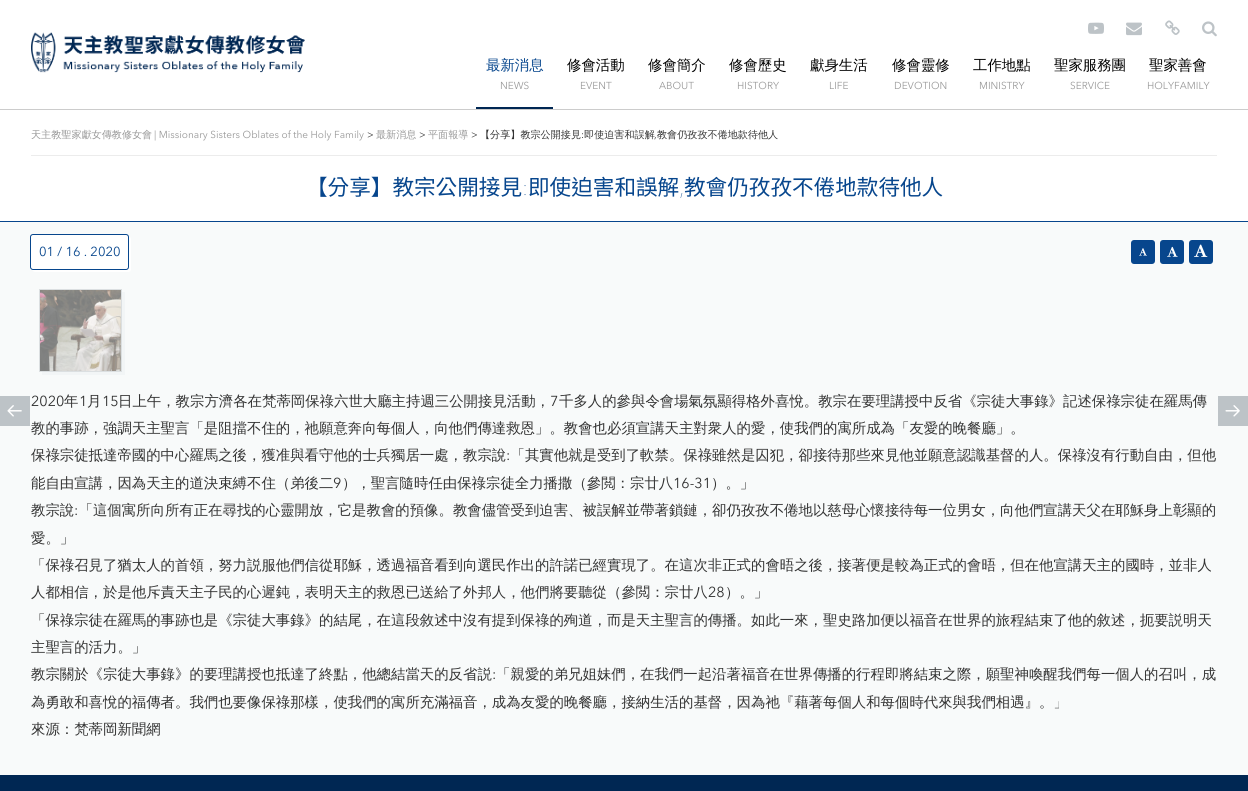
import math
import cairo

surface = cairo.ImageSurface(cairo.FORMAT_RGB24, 1248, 791)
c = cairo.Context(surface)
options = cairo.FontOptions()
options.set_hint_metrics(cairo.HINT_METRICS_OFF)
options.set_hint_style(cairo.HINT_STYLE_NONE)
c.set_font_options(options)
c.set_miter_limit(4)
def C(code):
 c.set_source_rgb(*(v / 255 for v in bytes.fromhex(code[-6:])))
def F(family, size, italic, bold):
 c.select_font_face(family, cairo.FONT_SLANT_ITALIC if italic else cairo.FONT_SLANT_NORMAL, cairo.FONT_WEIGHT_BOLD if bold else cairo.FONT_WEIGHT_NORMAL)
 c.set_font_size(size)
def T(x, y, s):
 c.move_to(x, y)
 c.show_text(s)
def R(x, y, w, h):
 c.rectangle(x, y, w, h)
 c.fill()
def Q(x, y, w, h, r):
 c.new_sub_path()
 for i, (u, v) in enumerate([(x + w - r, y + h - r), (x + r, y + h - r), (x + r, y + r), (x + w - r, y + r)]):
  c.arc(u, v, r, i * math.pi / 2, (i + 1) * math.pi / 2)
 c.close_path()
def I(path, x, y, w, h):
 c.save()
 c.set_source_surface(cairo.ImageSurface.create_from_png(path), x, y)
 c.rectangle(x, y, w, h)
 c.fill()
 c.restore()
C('ffffff')
c.paint()
C('cccccc')
R(0,109,1248,1)
I('1.png',31,32,274,41)
I('2.png',1088,22,16,12)
I('3.png',1126,22,16,14)
I('4.png',1165,20,15,15)
I('5.png',1202,21,15,16)
C('002753')
R(476,107,77,2)
F('WenQuanYi Zen Hei Medium',14.4,0,0)
C('07468d')
T(486,70,'最新消息')
F('Avenir Next',10.1,0,0)
C('999999')
T(500,89,'NEWS')
F('WenQuanYi Zen Hei Medium',14.4,0,0)
C('000000')
T(567,70,'修會活動')
F('Avenir Next',10.1,0,0)
C('999999')
T(580,89,'EVENT')
F('WenQuanYi Zen Hei Medium',14.4,0,0)
C('000000')
T(648,70,'修會簡介')
F('Avenir Next',10.1,0,0)
C('999999')
T(659,89,'ABOUT')
F('WenQuanYi Zen Hei Medium',14.4,0,0)
C('000000')
T(729,70,'修會歷史')
F('Avenir Next',10.1,0,0)
C('999999')
T(737,89,'HISTORY')
F('WenQuanYi Zen Hei Medium',14.4,0,0)
C('000000')
T(810,70,'獻身生活')
F('Avenir Next',10.1,0,0)
C('999999')
T(829,89,'LIFE')
F('WenQuanYi Zen Hei Medium',14.4,0,0)
C('000000')
T(892,70,'修會靈修')
F('Avenir Next',10.1,0,0)
C('999999')
T(894,89,'DEVOTION')
F('WenQuanYi Zen Hei Medium',14.4,0,0)
C('000000')
T(973,70,'工作地點')
F('Avenir Next',10.1,0,0)
C('999999')
T(979,89,'MINISTRY')
F('WenQuanYi Zen Hei Medium',14.4,0,0)
C('000000')
T(1054,70,'聖家服務團')
F('Avenir Next',10.1,0,0)
C('999999')
T(1070,89,'SERVICE')
F('WenQuanYi Zen Hei Medium',14.4,0,0)
C('000000')
T(1149,70,'聖家善會')
F('Avenir Next',10.1,0,0)
C('999999')
T(1147,89,'HOLYFAMILY')
C('ececec')
R(31,155,1186,1)
F('WenQuanYi Zen Hei Medium',10.1,0,0)
C('999999')
T(31,138,'天主教聖家獻女傳教修女會')
F('Avenir Next',10.1,0,0)
T(154,138,'| Missionary Sisters Oblates of the Holy Family')
C('333333')
T(367,138,'>')
F('WenQuanYi Zen Hei Medium',10.1,0,0)
C('999999')
T(376,138,'最新消息')
F('Avenir Next',10.1,0,0)
C('333333')
T(419,138,'>')
F('WenQuanYi Zen Hei Medium',10.1,0,0)
C('999999')
T(428,138,'平面報導')
F('Avenir Next',10.1,0,0)
C('333333')
T(471,138,'>')
F('WenQuanYi Zen Hei Medium',10.1,0,0)
T(480,138,'【分享】教宗公開接見 即使迫害和誤解')
T(657,138,'教會仍孜孜不倦地款待他人')
F('Avenir Next',10.1,0,0)
T(581,138,':')
T(654,138,',')
F('Noto Sans CJK TC',21.6,0,0)
C('07468d')
T(306,195,'【分享】教宗公開接見')
F('Avenir Next ExtraLight',21.6,0,0)
T(522,195,':')
F('Noto Sans CJK TC',21.6,0,0)
T(528,195,'即使迫害和誤解')
F('Avenir Next ExtraLight',21.6,0,0)
T(679,195,',')
F('Noto Sans CJK TC',21.6,0,0)
T(684,195,'教會仍孜孜不倦地款待他人')
C('f8fafa')
R(0,222,1248,553)
C('07468d')
R(0,221,1248,1)
C('ffffff')
c.new_path()
c.move_to(32,270)
c.curve_to(33,271,34,272,35,272)
c.line_to(128,272)
c.curve_to(130,272,131,271,131,269)
c.line_to(131,239)
c.curve_to(131,238,130,237,129,236)
c.line_to(129,262)
c.curve_to(129,264,130,270,126,270)
c.close_path()
c.fill()
Q(30.5,234.5,98,35,2.5)
c.fill_preserve()
C('07468d')
c.set_line_width(1)
c.stroke()
F('Avenir Next',13,0,0)
T(39,256,'01 / 16 . 2020')
Q(1131,240,24,24,3)
c.fill()
I('6.png',1139,248,8,8)
Q(1160,240,24,24,3)
c.fill()
I('7.png',1167,246,11,11)
Q(1189,240,24,24,3)
c.fill()
I('8.png',1194,244,14,13)
C('f2f5f6')
c.new_path()
c.move_to(42,372)
c.line_to(42,375)
c.line_to(125,375)
c.line_to(125,292)
c.line_to(122,292)
c.line_to(122,372)
c.close_path()
c.fill()
c.rectangle(39.5,289.5,82,82)
C('dbdfe1')
c.stroke()
I('9.png',40,290,81,81)
F('Avenir Next',14.4,0,0)
C('333333')
T(31,406,'2020')
F('WenQuanYi Zen Hei Medium',14.4,0,0)
T(64,406,'年')
F('Avenir Next',14.4,0,0)
T(79,406,'1')
F('WenQuanYi Zen Hei Medium',14.4,0,0)
T(87,406,'月')
F('Avenir Next',14.4,0,0)
T(102,406,'15')
F('WenQuanYi Zen Hei Medium',14.4,0,0)
T(118,406,'日上午，教宗方濟各在梵蒂岡保祿六世大廳主持週三公開接見活動，')
F('Avenir Next',14.4,0,0)
T(550,406,'7')
F('WenQuanYi Zen Hei Medium',14.4,0,0)
T(559,406,'千多人的參與令會場氣氛顯得格外喜悅。教宗在要理講授中反省《宗徒大事錄》記述保祿宗徒在羅馬傳')
T(31,433,'教的事跡，強調天主聖言「是阻擋不住的，祂願意奔向每個人，向他們傳達救恩」。教會也必須宣講天主對衆人的愛，使我們的寓所成為「友愛的晚餐廳」。')
T(31,460,'保祿宗徒抵達帝國的中心羅馬之後，獲准與看守他的士兵獨居一處，教宗說 「其實他就是受到了軟禁。保祿雖然是囚犯，卻接待那些來見他並願意認識基督的人。保祿沒有行動自由，但他')
F('Avenir Next',14.4,0,0)
T(506,460,':')
F('WenQuanYi Zen Hei Medium',14.4,0,0)
T(31,488,'能自由宣講，因為天主的道決束縛不住（弟後二')
F('Avenir Next',14.4,0,0)
T(333,488,'9')
F('WenQuanYi Zen Hei Medium',14.4,0,0)
T(342,488,'），聖言隨時任由保祿宗徒全力播撒（參閲：宗廿八')
F('Avenir Next',14.4,0,0)
T(673,488,'16-31')
F('WenQuanYi Zen Hei Medium',14.4,0,0)
T(711,488,'）。」')
T(31,515,'教宗說 「這個寓所向所有正在尋找的心靈開放，它是教會的預像。教會儘管受到迫害、被誤解並帶著鎖鏈，卻仍孜孜不倦地以慈母心懷接待每一位男女，向他們宣講天父在耶穌身上彰顯的')
F('Avenir Next',14.4,0,0)
T(74,515,':')
F('WenQuanYi Zen Hei Medium',14.4,0,0)
T(31,543,'愛。」')
T(31,570,'「保祿召見了猶太人的首領，努力説服他們信從耶穌，透過福音看到向選民作出的許諾已經實現了。在這次非正式的會晤之後，接著便是較為正式的會晤，但在他宣講天主的國時，並非人')
T(31,597,'人都相信，於是他斥責天主子民的心遲鈍，表明天主的救恩已送給了外邦人，他們將要聽從（參閲：宗廿八')
F('Avenir Next',14.4,0,0)
T(708,597,'28')
F('WenQuanYi Zen Hei Medium',14.4,0,0)
T(725,597,'）。」')
T(31,625,'「保祿宗徒在羅馬的事跡也是《宗徒大事錄》的結尾，在這段敘述中沒有提到保祿的殉道，而是天主聖言的傳播。如此一來，聖史路加便以福音在世界的旅程結束了他的敘述，扼要説明天')
T(31,652,'主聖言的活力。」')
T(31,679,'教宗關於《宗徒大事錄》的要理講授也抵達了終點，他總結當天的反省説 「親愛的弟兄姐妹們，在我們一起沿著福音在世界傳播的行程即將結束之際，願聖神喚醒我們每一個人的召叫，成')
F('Avenir Next',14.4,0,0)
T(492,679,':')
F('WenQuanYi Zen Hei Medium',14.4,0,0)
T(31,707,'為勇敢和喜悅的福傳者。我們也要像保祿那樣，使我們的寓所充滿福音，成為友愛的晚餐廳，接納生活的基督，因為祂『藉著每個人和每個時代來與我們相遇』。」')
T(31,734,'來源：梵蒂岡新聞網')
C('bdc3c7')
R(0,396,30,30)
I('10.png',7,405,15,12)
R(1218,396,30,30)
I('11.png',1225,405,15,12)
C('002753')
R(0,775,1248,16)
surface.write_to_png('o.png')
